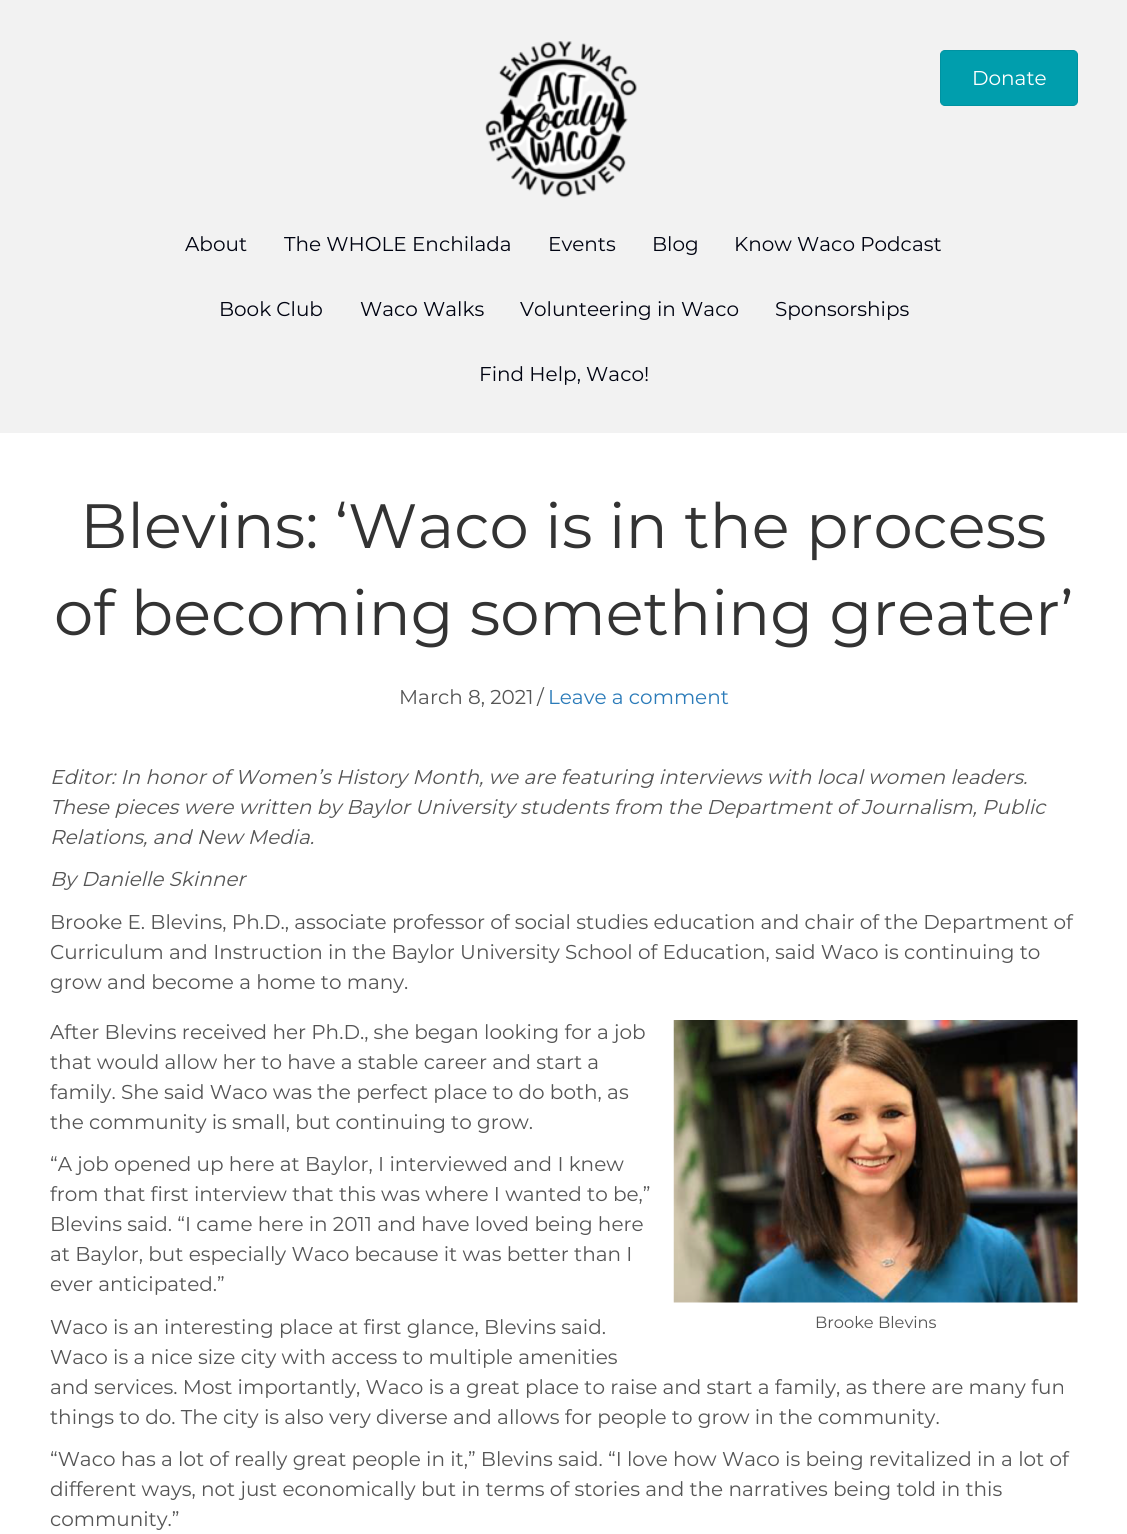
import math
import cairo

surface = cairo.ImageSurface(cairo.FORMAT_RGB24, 1127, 1534)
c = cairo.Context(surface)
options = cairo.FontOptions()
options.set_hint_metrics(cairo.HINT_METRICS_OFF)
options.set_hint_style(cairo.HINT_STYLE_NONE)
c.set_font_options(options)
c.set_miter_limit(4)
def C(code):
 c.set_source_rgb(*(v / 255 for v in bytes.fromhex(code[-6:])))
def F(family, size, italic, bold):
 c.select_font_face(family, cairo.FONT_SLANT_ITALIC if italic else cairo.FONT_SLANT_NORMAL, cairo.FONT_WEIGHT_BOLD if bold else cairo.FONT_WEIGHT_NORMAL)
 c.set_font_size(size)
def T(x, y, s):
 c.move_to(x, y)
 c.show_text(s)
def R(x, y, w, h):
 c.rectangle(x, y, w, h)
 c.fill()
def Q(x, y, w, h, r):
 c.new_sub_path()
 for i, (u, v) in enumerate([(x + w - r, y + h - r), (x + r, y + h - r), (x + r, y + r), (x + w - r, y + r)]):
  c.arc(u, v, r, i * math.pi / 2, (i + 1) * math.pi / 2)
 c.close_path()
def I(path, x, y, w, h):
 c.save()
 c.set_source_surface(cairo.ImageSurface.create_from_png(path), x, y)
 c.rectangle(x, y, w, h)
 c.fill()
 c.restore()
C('f2f2f2')
c.paint()
I('1.png',485,41,152,157)
C('009ead')
Q(940.5,50.5,137,55,4.5)
c.fill_preserve()
C('0092a1')
c.set_line_width(1)
c.stroke()
F('Montserrat',20,0,0)
C('ffffff')
T(972,85,'Donate')
C('000311')
T(185,251,'About')
T(284,251,'The WHOLE Enchilada')
T(548,251,'Events')
T(652,251,'Blog')
T(734,251,'Know Waco Podcast')
T(219,316,'Book Club')
T(360,316,'Waco Walks')
T(520,316,'Volunteering in Waco')
T(775,316,'Sponsorships')
T(479,381,'Find Help, Waco!')
C('ffffff')
R(0,433,1127,1101)
F('Montserrat',62.5,0,0)
C('333333')
T(80,548,'Blevins: ‘Waco is in the process')
T(54,635,'of becoming something greater’')
F('Montserrat',20,0,0)
C('555555')
T(399,704,'March 8, 2021')
T(537,704,'/')
C('2b7bb9')
T(548,704,'Leave a comment')
F('Montserrat',20,1,0)
C('555555')
T(50,784,'Editor: In honor of Women’s History Month, we are featuring interviews with local women leaders.')
T(50,814,'These pieces were written by Baylor University students from the Department of Journalism, Public')
T(50,844,'Relations, and New Media.')
T(50,886,'By Danielle Skinner')
F('Montserrat',20,0,0)
T(50,929,'Brooke E. Blevins, Ph.D., associate professor of social studies education and chair of the Department of')
T(50,959,'Curriculum and Instruction in the Baylor University School of Education, said Waco is continuing to')
T(50,989,'grow and become a home to many.')
T(50,1039,'After Blevins received her Ph.D., she began looking for a job')
T(50,1069,'that would allow her to have a stable career and start a')
T(50,1099,'family. She said Waco was the perfect place to do both, as')
T(50,1129,'the community is small, but continuing to grow.')
T(50,1171,'“A job opened up here at Baylor, I interviewed and I knew')
T(50,1201,'from that first interview that this was where I wanted to be,”')
T(50,1231,'Blevins said. “I came here in 2011 and have loved being here')
T(50,1261,'at Baylor, but especially Waco because it was better than I')
T(50,1291,'ever anticipated.”')
I('2.png',673,1020,405,283)
F('Montserrat',16.25,0,0)
T(815,1328,'Brooke Blevins')
F('Montserrat',20,0,0)
T(50,1334,'Waco is an interesting place at first glance, Blevins said.')
T(50,1364,'Waco is a nice size city with access to multiple amenities')
T(50,1394,'and services. Most importantly, Waco is a great place to raise and start a family, as there are many fun')
T(50,1424,'things to do. The city is also very diverse and allows for people to grow in the community.')
T(50,1466,'“Waco has a lot of really great people in it,” Blevins said. “I love how Waco is being revitalized in a lot of')
T(50,1496,'different ways, not just economically but in terms of stories and the narratives being told in this')
T(50,1526,'community.”')
surface.write_to_png('o.png')
